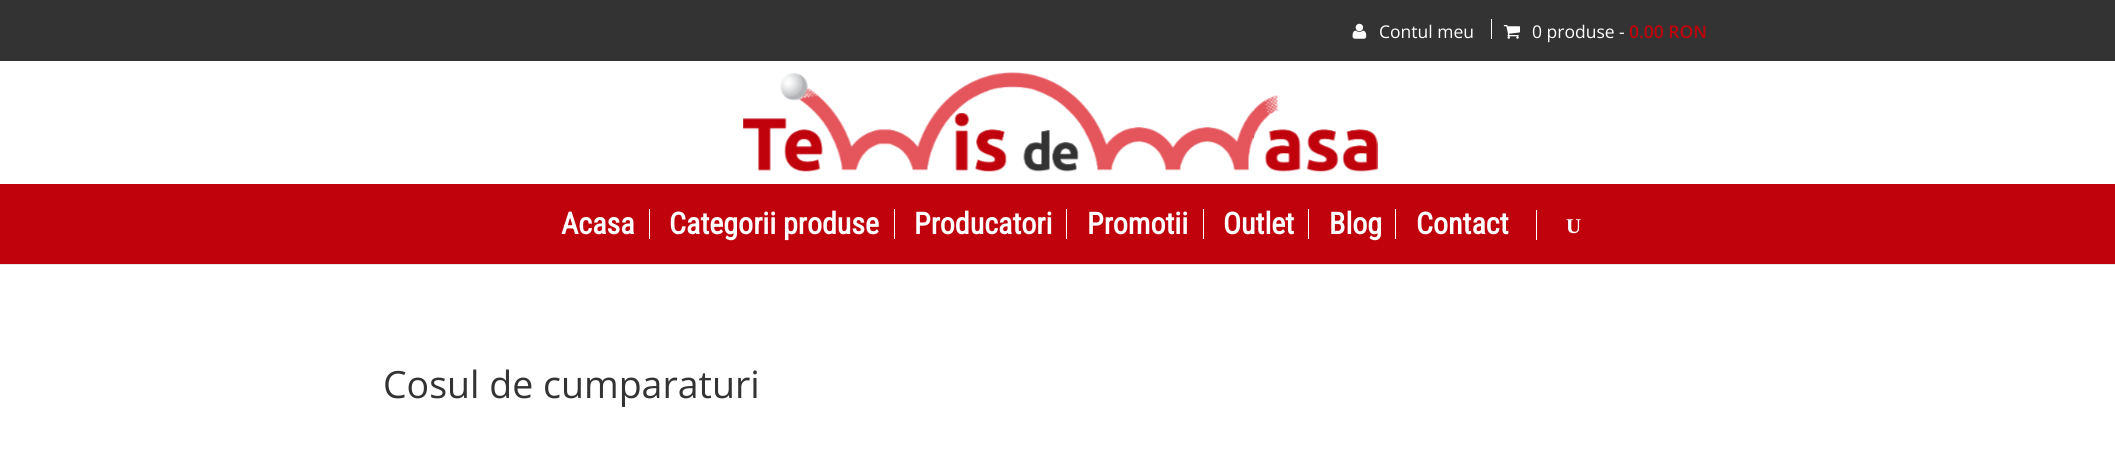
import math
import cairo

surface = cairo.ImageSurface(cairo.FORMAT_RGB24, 2115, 467)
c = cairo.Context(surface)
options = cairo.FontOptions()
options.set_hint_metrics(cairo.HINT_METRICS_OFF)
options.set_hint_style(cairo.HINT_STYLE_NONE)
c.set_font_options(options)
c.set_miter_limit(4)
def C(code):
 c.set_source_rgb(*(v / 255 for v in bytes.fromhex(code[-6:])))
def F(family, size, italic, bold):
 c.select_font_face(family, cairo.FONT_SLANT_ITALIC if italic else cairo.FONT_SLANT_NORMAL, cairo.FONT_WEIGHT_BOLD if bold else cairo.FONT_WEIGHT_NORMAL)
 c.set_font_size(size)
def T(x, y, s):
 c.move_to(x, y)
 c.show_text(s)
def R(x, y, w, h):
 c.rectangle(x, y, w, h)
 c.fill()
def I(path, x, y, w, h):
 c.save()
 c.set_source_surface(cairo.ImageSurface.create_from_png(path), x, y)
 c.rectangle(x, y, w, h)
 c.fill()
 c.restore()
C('ffffff')
c.paint()
C('e6e6e6')
R(0,264,2115,1)
C('333333')
R(0,0,2115,61)
I('1.png',1352,23,15,16)
F('Open Sans',17.5,0,0)
C('ffffff')
T(1379,38,'Contul meu')
R(1491,19,1,20)
I('2.png',1503,25,17,14)
T(1532,38,'0 produse -')
F('Open Sans SemiBold',17.5,0,0)
C('c0020c')
T(1629,38,'0.00 RON')
I('3.png',743,72,635,100)
R(0,184,2115,80)
F('Roboto Condensed',30,0,1)
C('ffffff')
T(561,234,'Acasa')
R(649,209,1,30)
T(669,234,'Categorii produse')
R(894,209,1,30)
T(914,234,'Producatori')
R(1066,209,1,30)
T(1087,234,'Promotii')
R(1203,209,1,30)
T(1223,234,'Outlet')
R(1308,209,1,30)
T(1329,234,'Blog')
R(1395,209,1,30)
T(1416,234,'Contact')
R(1536,210,1,30)
F('Liberation Serif',21,0,1)
T(1566,233,'U')
F('Open Sans',37.5,0,0)
C('333333')
T(383,398,'Cosul de cumparaturi')
surface.write_to_png('o.png')
